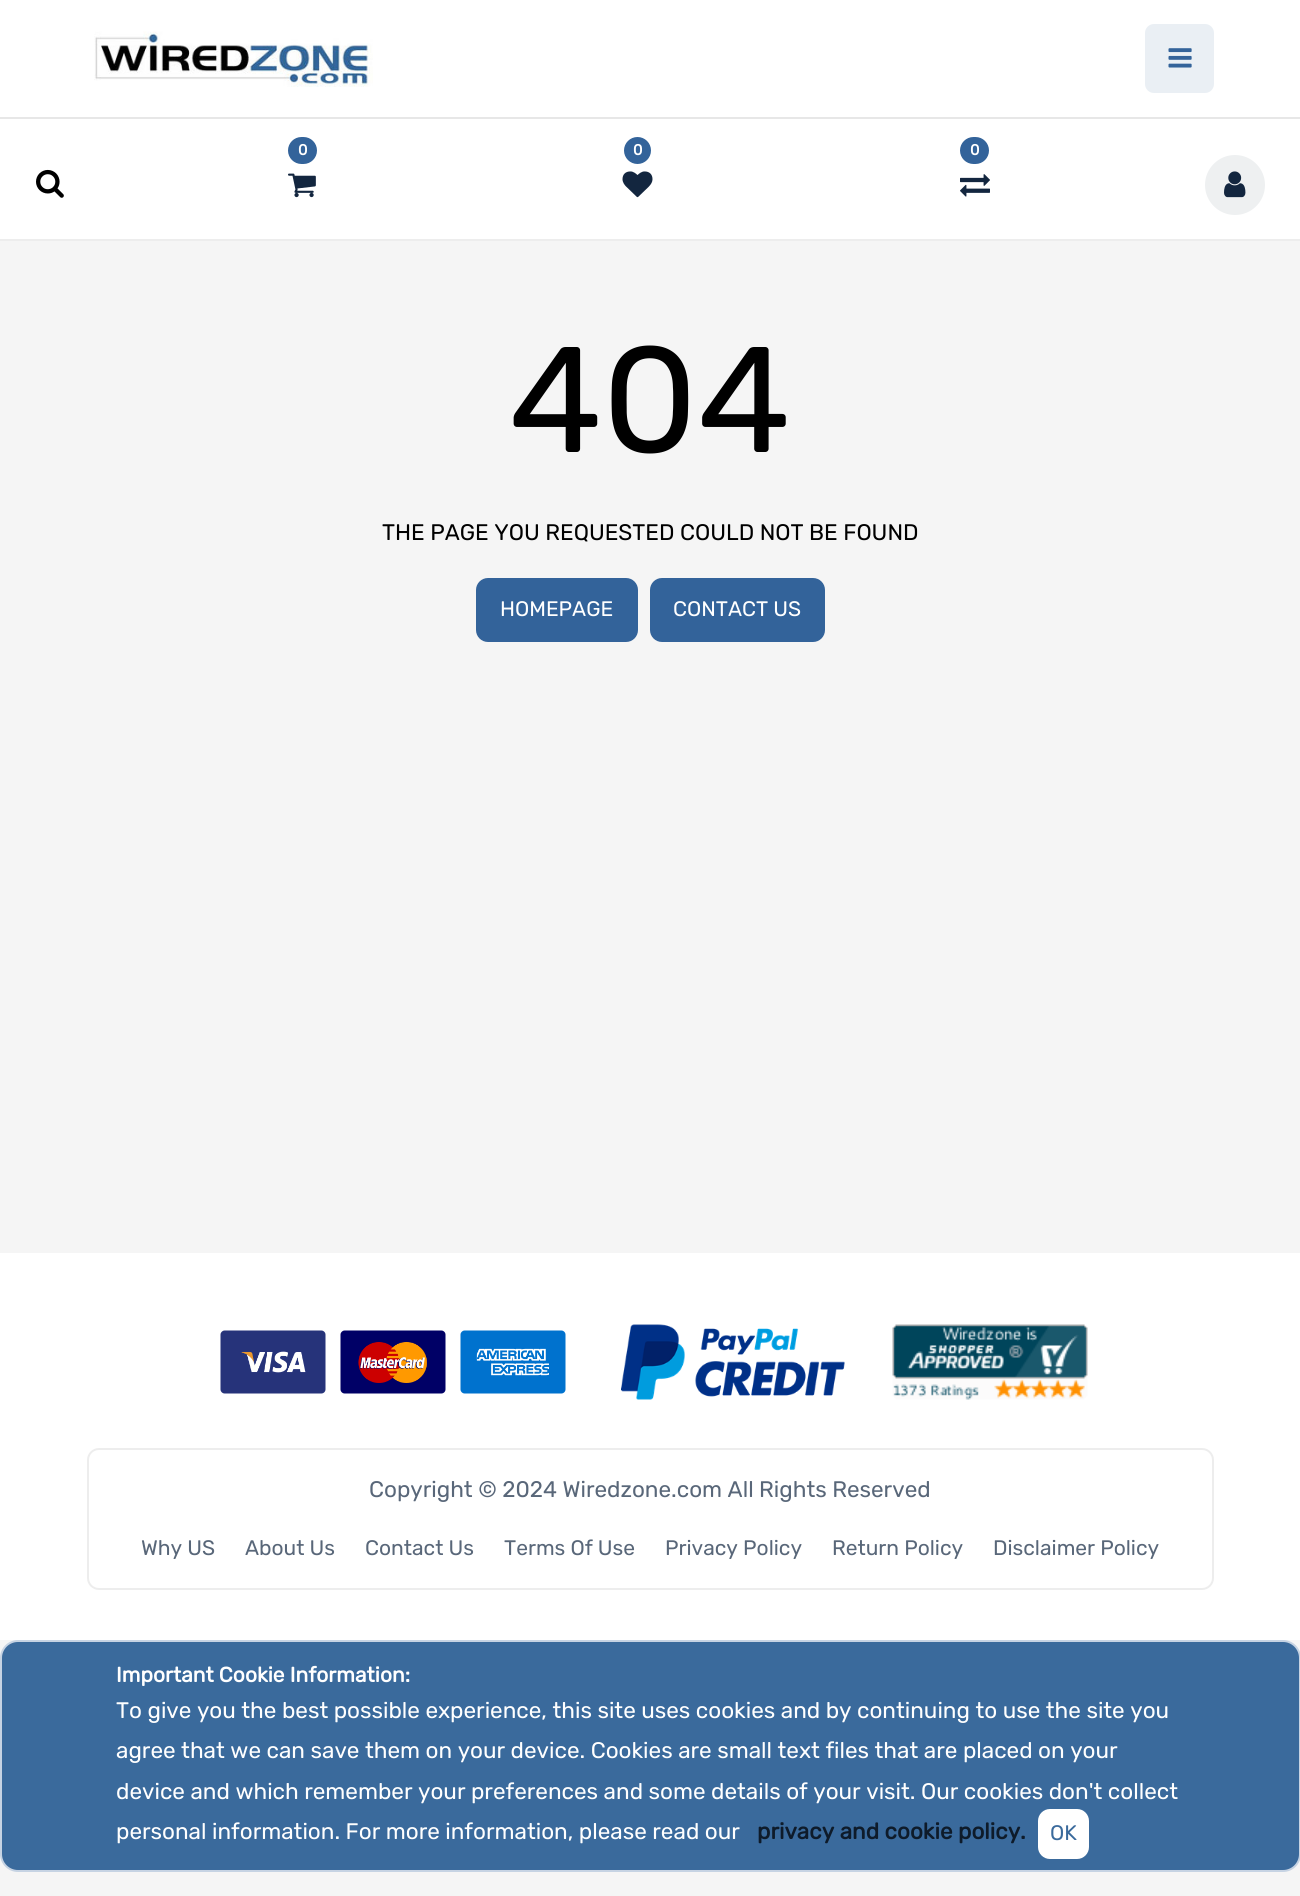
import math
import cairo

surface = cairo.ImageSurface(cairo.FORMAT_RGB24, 1300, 1896)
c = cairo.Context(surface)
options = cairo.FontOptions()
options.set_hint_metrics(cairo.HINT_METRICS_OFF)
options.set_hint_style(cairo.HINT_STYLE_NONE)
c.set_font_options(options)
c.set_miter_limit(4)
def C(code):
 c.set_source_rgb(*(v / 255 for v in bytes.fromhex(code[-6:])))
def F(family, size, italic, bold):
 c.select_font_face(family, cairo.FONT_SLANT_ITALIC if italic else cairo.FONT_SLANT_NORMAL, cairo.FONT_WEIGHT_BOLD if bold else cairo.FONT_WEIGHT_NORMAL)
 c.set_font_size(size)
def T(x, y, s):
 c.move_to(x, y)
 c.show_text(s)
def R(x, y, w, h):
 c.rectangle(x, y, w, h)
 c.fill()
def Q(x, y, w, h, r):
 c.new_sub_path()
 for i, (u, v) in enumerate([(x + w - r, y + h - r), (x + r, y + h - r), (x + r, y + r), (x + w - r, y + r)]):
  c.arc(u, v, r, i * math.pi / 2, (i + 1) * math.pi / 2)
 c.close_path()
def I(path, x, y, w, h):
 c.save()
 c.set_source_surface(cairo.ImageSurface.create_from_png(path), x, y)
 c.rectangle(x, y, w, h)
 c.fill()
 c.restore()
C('f5f5f5')
c.paint()
C('ffffff')
R(0,0,1300,117)
C('e7e7e7')
R(0,117,1300,2)
I('1.png',94,31,279,56)
C('eaeff4')
Q(1145,24,69,69,9)
c.fill()
I('2.png',1168,48,24,20)
C('ffffff')
R(0,119,1300,120)
C('ededed')
R(0,239,1300,2)
C('33639a')
Q(288,137,29,27,13.5)
c.fill()
F('Rubik',15,0,1)
C('ffffff')
T(298,155,'0')
I('3.png',288,173,28,25)
C('33639a')
c.arc(637.5,150.5,13.5,0,2 * math.pi)
c.fill()
C('ffffff')
T(633,155,'0')
I('4.png',622,171,31,27)
C('33639a')
Q(960,137,29,27,13.5)
c.fill()
C('ffffff')
T(970,155,'0')
I('5.png',960,174,30,23)
I('6.png',36,169,28,29)
C('eef0f1')
c.arc(1235,185,30,0,2 * math.pi)
c.fill()
I('7.png',1224,171,22,27)
F('Rubik Light',150,0,0)
C('000000')
T(509,452,'404')
F('Rubik Light',22.5,0,0)
T(382,540,'THE PAGE YOU REQUESTED COULD NOT BE FOUND')
C('33639a')
Q(476,578,162,64,12)
c.fill()
F('Rubik Light',21,0,0)
C('ffffff')
T(500,616,'HOMEPAGE')
C('33639a')
Q(650,578,175,64,12)
c.fill()
C('ffffff')
T(673,616,'CONTACT US')
R(0,1253,1300,387)
I('8.png',220,1330,106,64)
I('9.png',340,1330,106,64)
I('10.png',460,1330,106,64)
I('11.png',621,1324,224,76)
I('12.png',892,1324,196,76)
Q(88,1449,1125,140,11)
C('ededed')
c.stroke()
F('Rubik Light',22.5,0,0)
C('596779')
T(369,1497,'Copyright © 2024 Wiredzone.com All Rights Reserved')
F('Rubik Light',21,0,0)
T(141,1555,'Why US')
T(245,1555,'About Us')
T(365,1555,'Contact Us')
T(504,1555,'Terms Of Use')
T(665,1555,'Privacy Policy')
T(832,1555,'Return Policy')
T(993,1555,'Disclaimer Policy')
C('3a6a9c')
Q(1,1641,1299,230,17)
c.fill_preserve()
C('c6d3e3')
c.stroke()
F('Rubik',21,0,1)
C('ffffff')
T(116,1682,'Important Cookie Information:')
F('Rubik Light',22.5,0,0)
T(116,1718,'To give you the best possible experience, this site uses cookies and by continuing to use the site you')
T(116,1758,'agree that we can save them on your device. Cookies are small text files that are placed on your')
T(116,1799,'device and which remember your preferences and some details of your visit. Our cookies don\'t collect')
T(116,1839,'personal information. For more information, please read our')
F('Rubik',22.5,0,1)
C('0e1b2a')
T(757,1839,'privacy and cookie policy.')
C('ffffff')
Q(1038,1809,51,50,12)
c.fill()
F('Rubik Light',21,0,0)
C('3a6a9c')
T(1050,1840,'OK')
surface.write_to_png('o.png')
